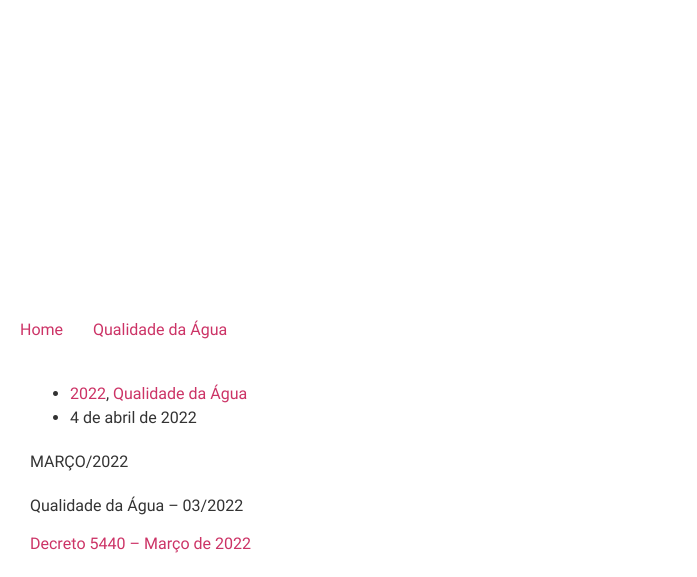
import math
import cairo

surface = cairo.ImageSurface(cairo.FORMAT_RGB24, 697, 577)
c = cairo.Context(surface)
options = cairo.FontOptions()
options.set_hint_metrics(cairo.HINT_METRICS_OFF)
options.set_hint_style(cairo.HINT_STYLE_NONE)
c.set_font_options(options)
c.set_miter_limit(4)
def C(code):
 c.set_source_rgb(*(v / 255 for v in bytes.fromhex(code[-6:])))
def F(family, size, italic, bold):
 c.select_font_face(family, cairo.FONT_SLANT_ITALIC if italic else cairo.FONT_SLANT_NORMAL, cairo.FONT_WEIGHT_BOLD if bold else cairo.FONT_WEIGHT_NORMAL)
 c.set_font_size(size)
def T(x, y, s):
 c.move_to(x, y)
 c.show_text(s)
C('ffffff')
c.paint()
F('Roboto',16,0,0)
C('cc3366')
T(20,335,'Home')
T(93,335,'Qualidade da Água')
C('333333')
c.new_path()
c.arc(55.5,393.5,2.5,0,2 * math.pi)
c.fill()
C('cc3366')
T(70,399,'2022')
T(113,399,'Qualidade da Água')
C('333333')
T(106,399,',')
c.new_path()
c.arc(55.5,417.5,2.5,0,2 * math.pi)
c.fill()
T(70,423,'4 de abril de 2022')
T(30,467,'MARÇO/2022')
T(30,511,'Qualidade da Água – 03/2022')
C('cc3366')
T(30,549,'Decreto 5440 – Março de 2022')
surface.write_to_png('o.png')
